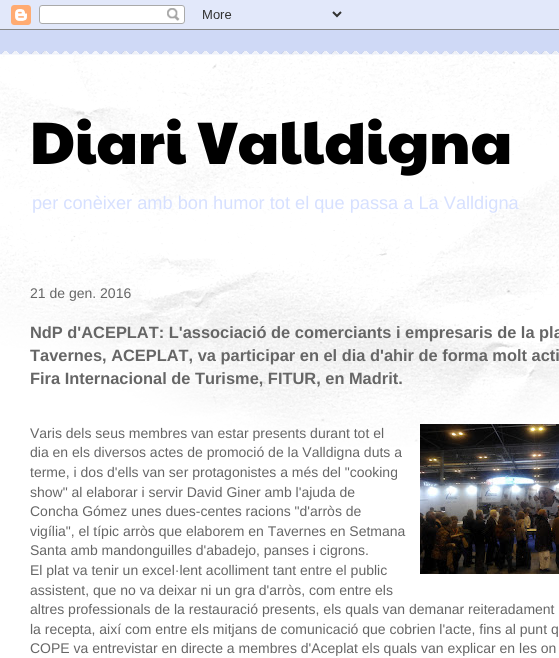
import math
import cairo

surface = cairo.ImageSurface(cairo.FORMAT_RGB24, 559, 658)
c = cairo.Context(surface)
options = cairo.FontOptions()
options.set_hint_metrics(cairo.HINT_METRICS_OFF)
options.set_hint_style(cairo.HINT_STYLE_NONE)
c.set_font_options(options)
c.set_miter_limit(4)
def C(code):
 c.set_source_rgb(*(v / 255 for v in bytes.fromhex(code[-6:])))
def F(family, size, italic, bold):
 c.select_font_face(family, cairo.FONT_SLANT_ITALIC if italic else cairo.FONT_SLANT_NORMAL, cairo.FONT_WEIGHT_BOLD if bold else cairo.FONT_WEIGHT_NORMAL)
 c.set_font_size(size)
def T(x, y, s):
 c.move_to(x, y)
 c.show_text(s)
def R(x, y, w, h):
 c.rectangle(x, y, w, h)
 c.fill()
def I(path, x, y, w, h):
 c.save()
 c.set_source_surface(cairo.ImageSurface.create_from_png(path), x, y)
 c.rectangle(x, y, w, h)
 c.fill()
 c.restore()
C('cfd9f6')
c.paint()
I('1.png',0,0,559,30)
I('2.png',0,51,559,4)
C('ffffff')
R(0,55,559,603)
I('3.png',0,55,559,392)
F('Paytone One',60,0,0)
C('000000')
T(30,164,'Diari Valldigna')
F('Liberation Sans',18.2,0,0)
C('d6e0ff')
T(32,209,'per conèixer amb bon humor tot el que passa a La Valldigna')
F('Liberation Sans',14,0,0)
C('666666')
T(30,298,'21 de gen. 2016')
F('Liberation Sans',16.4,0,1)
T(30,338,'NdP d\'ACEPLAT: L\'associació de comerciants i empresaris de la pla')
T(30,361,'Tavernes, ACEPLAT, va participar en el dia d\'ahir de forma molt acti')
T(30,384,'Fira Internacional de Turisme, FITUR, en Madrit.')
F('Liberation Sans',14,0,0)
T(30,438,'Varis dels seus membres van estar presents durant tot el')
I('4.png',420,424,139,150)
T(30,457,'dia en els diversos actes de promoció de la Valldigna duts a')
T(30,477,'terme, i dos d\'ells van ser protagonistes a més del "cooking')
T(30,497,'show" al elaborar i servir David Giner amb l\'ajuda de')
T(30,516,'Concha Gómez unes dues-centes racions "d\'arròs de')
T(30,536,'vigília", el típic arròs que elaborem en Tavernes en Setmana')
T(30,555,'Santa amb mandonguilles d\'abadejo, panses i cigrons.')
T(30,575,'El plat va tenir un excel·lent acolliment tant entre el public')
T(30,595,'assistent, que no va deixar ni un gra d\'arròs, com entre els')
T(30,614,'altres professionals de la restauració presents, els quals van demanar reiteradament')
T(30,634,'la recepta, així com entre els mitjans de comunicació que cobrien l\'acte, fins al punt q')
T(30,653,'COPE va entrevistar en directe a membres d\'Aceplat els quals van explicar en les on')
surface.write_to_png('o.png')
